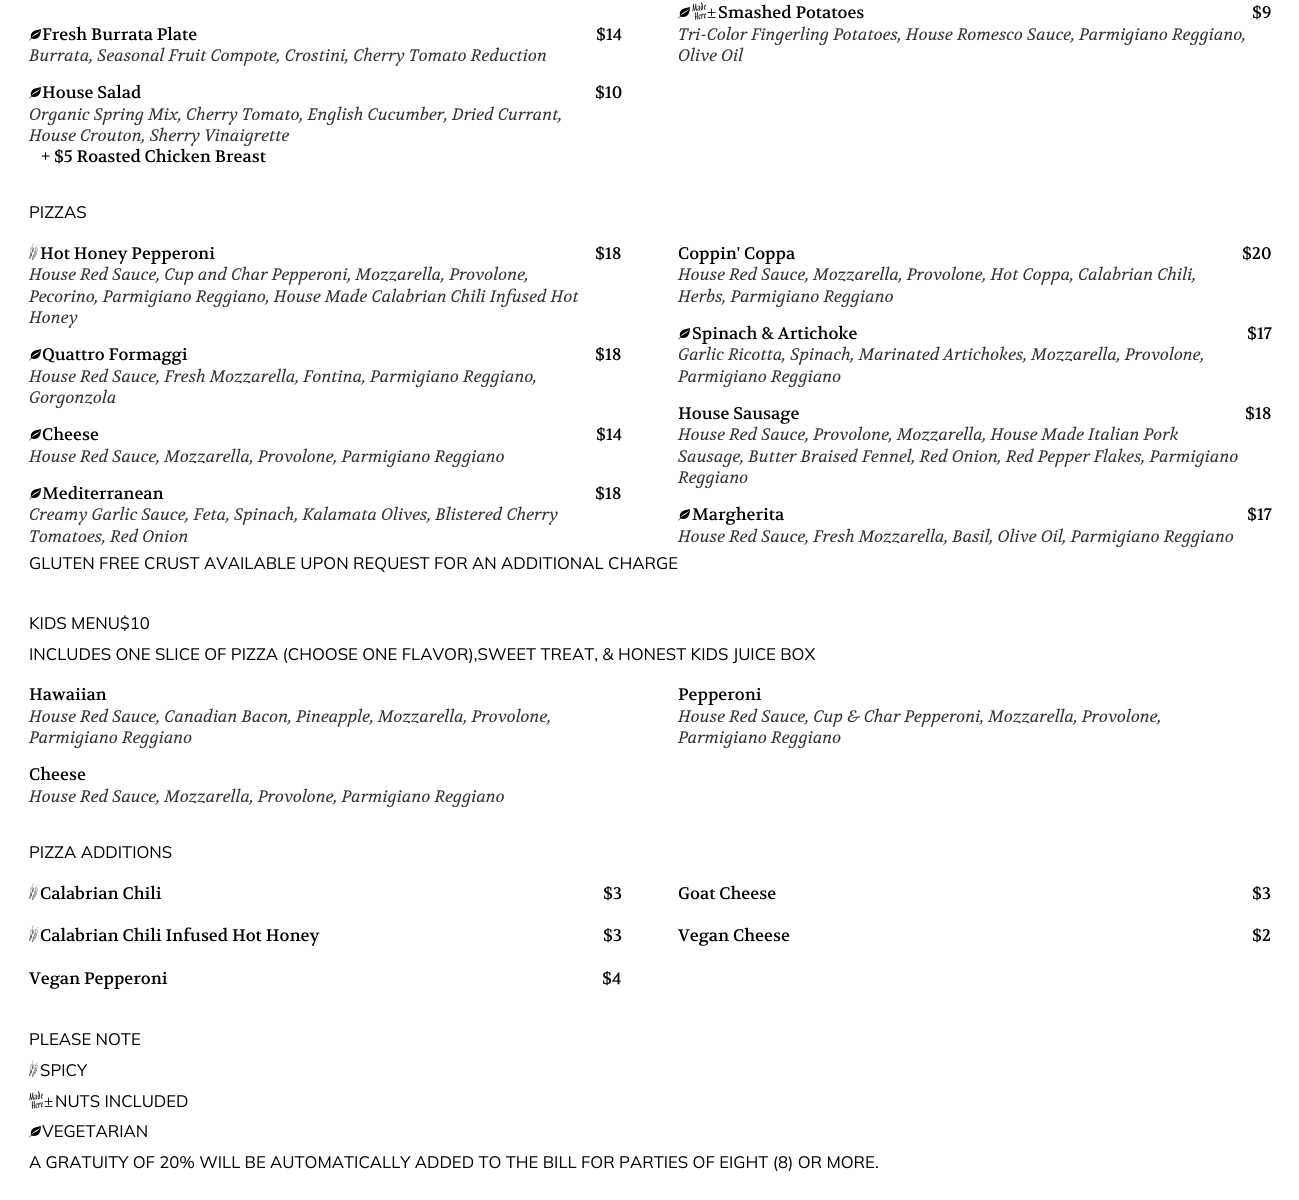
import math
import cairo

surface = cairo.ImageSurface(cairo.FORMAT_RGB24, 1299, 1200)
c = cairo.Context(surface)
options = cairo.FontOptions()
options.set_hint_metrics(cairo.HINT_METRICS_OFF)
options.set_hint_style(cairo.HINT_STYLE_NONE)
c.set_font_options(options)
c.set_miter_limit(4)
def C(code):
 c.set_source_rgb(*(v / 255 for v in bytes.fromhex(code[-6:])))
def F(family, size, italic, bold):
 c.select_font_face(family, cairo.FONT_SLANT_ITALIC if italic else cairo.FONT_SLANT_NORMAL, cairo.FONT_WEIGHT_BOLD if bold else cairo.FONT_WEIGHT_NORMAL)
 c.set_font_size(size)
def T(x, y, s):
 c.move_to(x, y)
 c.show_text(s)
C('ffffff')
c.paint()
F('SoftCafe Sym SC',16.67,0,0)
C('000000')
T(29,40,'4')
F('Volkhov',16.67,0,0)
T(42,40,'Fresh Burrata Plate')
T(596,40,'$14')
F('Volkhov',16.67,1,0)
C('333333')
T(29,61,'Burrata, Seasonal Fruit Compote, Crostini, Cherry Tomato Reduction')
F('SoftCafe Sym SC',16.67,0,0)
C('000000')
T(678,18,'4')
T(692,18,'Ã')
F('Liberation Serif',16.67,0,0)
T(707,18,'±')
F('Volkhov',16.67,0,0)
T(718,18,'Smashed Potatoes')
T(1252,18,'$9')
F('Volkhov',16.67,1,0)
C('333333')
T(678,40,'Tri-Color Fingerling Potatoes, House Romesco Sauce, Parmigiano Reggiano,')
T(678,61,'Olive Oil')
F('SoftCafe Sym SC',16.67,0,0)
C('000000')
T(29,98,'4')
F('Volkhov',16.67,0,0)
T(42,98,'House Salad')
T(595,98,'$10')
F('Volkhov',16.67,1,0)
C('333333')
T(29,120,'Organic Spring Mix, Cherry Tomato, English Cucumber, Dried Currant,')
T(29,141,'House Crouton, Sherry Vinaigrette')
F('Volkhov',16.67,0,0)
C('000000')
T(41,162,'+ $5 Roasted Chicken Breast')
F('Mulish ExtraLight',16.67,0,0)
T(29,218,'PIZZAS')
F('SoftCafe Sym SC',16.67,0,0)
T(29,259,'I')
F('Volkhov',16.67,0,0)
T(40,259,'Hot Honey Pepperoni')
T(595,259,'$18')
F('Volkhov',16.67,1,0)
C('333333')
T(29,280,'House Red Sauce, Cup and Char Pepperoni, Mozzarella, Provolone,')
T(29,302,'Pecorino, Parmigiano Reggiano, House Made Calabrian Chili Infused Hot')
T(29,323,'Honey')
F('Volkhov',16.67,0,0)
C('000000')
T(678,259,'Coppin\' Coppa')
T(1242,259,'$20')
F('Volkhov',16.67,1,0)
C('333333')
T(678,280,'House Red Sauce, Mozzarella, Provolone, Hot Coppa, Calabrian Chili,')
T(678,302,'Herbs, Parmigiano Reggiano')
F('SoftCafe Sym SC',16.67,0,0)
C('000000')
T(29,360,'4')
F('Volkhov',16.67,0,0)
T(42,360,'Quattro Formaggi')
T(595,360,'$18')
F('Volkhov',16.67,1,0)
C('333333')
T(29,382,'House Red Sauce, Fresh Mozzarella, Fontina, Parmigiano Reggiano,')
T(29,403,'Gorgonzola')
F('SoftCafe Sym SC',16.67,0,0)
C('000000')
T(678,339,'4')
F('Volkhov',16.67,0,0)
T(692,339,'Spinach & Artichoke')
T(1247,339,'$17')
F('Volkhov',16.67,1,0)
C('333333')
T(678,360,'Garlic Ricotta, Spinach, Marinated Artichokes, Mozzarella, Provolone,')
T(678,382,'Parmigiano Reggiano')
F('SoftCafe Sym SC',16.67,0,0)
C('000000')
T(29,440,'4')
F('Volkhov',16.67,0,0)
T(42,440,'Cheese')
T(596,440,'$14')
F('Volkhov',16.67,1,0)
C('333333')
T(29,462,'House Red Sauce, Mozzarella, Provolone, Parmigiano Reggiano')
F('Volkhov',16.67,0,0)
C('000000')
T(678,419,'House Sausage')
T(1245,419,'$18')
F('Volkhov',16.67,1,0)
C('333333')
T(678,440,'House Red Sauce, Provolone, Mozzarella, House Made Italian Pork')
T(678,462,'Sausage, Butter Braised Fennel, Red Onion, Red Pepper Flakes, Parmigiano')
T(678,483,'Reggiano')
F('SoftCafe Sym SC',16.67,0,0)
C('000000')
T(29,499,'4')
F('Volkhov',16.67,0,0)
T(42,499,'Mediterranean')
T(595,499,'$18')
F('Volkhov',16.67,1,0)
C('333333')
T(29,520,'Creamy Garlic Sauce, Feta, Spinach, Kalamata Olives, Blistered Cherry')
T(29,542,'Tomatoes, Red Onion')
F('SoftCafe Sym SC',16.67,0,0)
C('000000')
T(678,520,'4')
F('Volkhov',16.67,0,0)
T(692,520,'Margherita')
T(1247,520,'$17')
F('Volkhov',16.67,1,0)
C('333333')
T(678,542,'House Red Sauce, Fresh Mozzarella, Basil, Olive Oil, Parmigiano Reggiano')
F('Mulish ExtraLight',16.67,0,0)
C('000000')
T(29,569,'GLUTEN FREE CRUST AVAILABLE UPON REQUEST FOR AN ADDITIONAL CHARGE')
T(29,629,'KIDS MENU$10')
T(29,660,'INCLUDES ONE SLICE OF PIZZA (CHOOSE ONE FLAVOR),SWEET TREAT, & HONEST KIDS JUICE BOX')
F('Volkhov',16.67,0,0)
T(29,700,'Hawaiian')
F('Volkhov',16.67,1,0)
C('333333')
T(29,722,'House Red Sauce, Canadian Bacon, Pineapple, Mozzarella, Provolone,')
T(29,743,'Parmigiano Reggiano')
F('Volkhov',16.67,0,0)
C('000000')
T(678,700,'Pepperoni')
F('Volkhov',16.67,1,0)
C('333333')
T(678,722,'House Red Sauce, Cup & Char Pepperoni, Mozzarella, Provolone,')
T(678,743,'Parmigiano Reggiano')
F('Volkhov',16.67,0,0)
C('000000')
T(29,780,'Cheese')
F('Volkhov',16.67,1,0)
C('333333')
T(29,802,'House Red Sauce, Mozzarella, Provolone, Parmigiano Reggiano')
F('Mulish ExtraLight',16.67,0,0)
C('000000')
T(29,858,'PIZZA ADDITIONS')
F('SoftCafe Sym SC',16.67,0,0)
T(29,899,'I')
F('Volkhov',16.67,0,0)
T(40,899,'Calabrian Chili')
T(603,899,'$3')
T(678,899,'Goat Cheese')
T(1252,899,'$3')
F('SoftCafe Sym SC',16.67,0,0)
T(29,941,'I')
F('Volkhov',16.67,0,0)
T(40,941,'Calabrian Chili Infused Hot Honey')
T(603,941,'$3')
T(678,941,'Vegan Cheese')
T(1252,941,'$2')
T(29,984,'Vegan Pepperoni')
T(602,984,'$4')
F('Mulish ExtraLight',16.67,0,0)
T(29,1045,'PLEASE NOTE')
F('SoftCafe Sym SC',16.67,0,0)
T(29,1076,'I')
F('Mulish ExtraLight',16.67,0,0)
T(40,1076,'SPICY')
F('SoftCafe Sym SC',16.67,0,0)
T(29,1107,'Ã')
F('Liberation Serif',16.67,0,0)
T(44,1107,'±')
F('Mulish ExtraLight',16.67,0,0)
T(55,1107,'NUTS INCLUDED')
F('SoftCafe Sym SC',16.67,0,0)
T(29,1137,'4')
F('Mulish ExtraLight',16.67,0,0)
T(42,1137,'VEGETARIAN')
T(29,1168,'A GRATUITY OF 20% WILL BE AUTOMATICALLY ADDED TO THE BILL FOR PARTIES OF EIGHT (8) OR MORE.')
surface.write_to_png('o.png')
